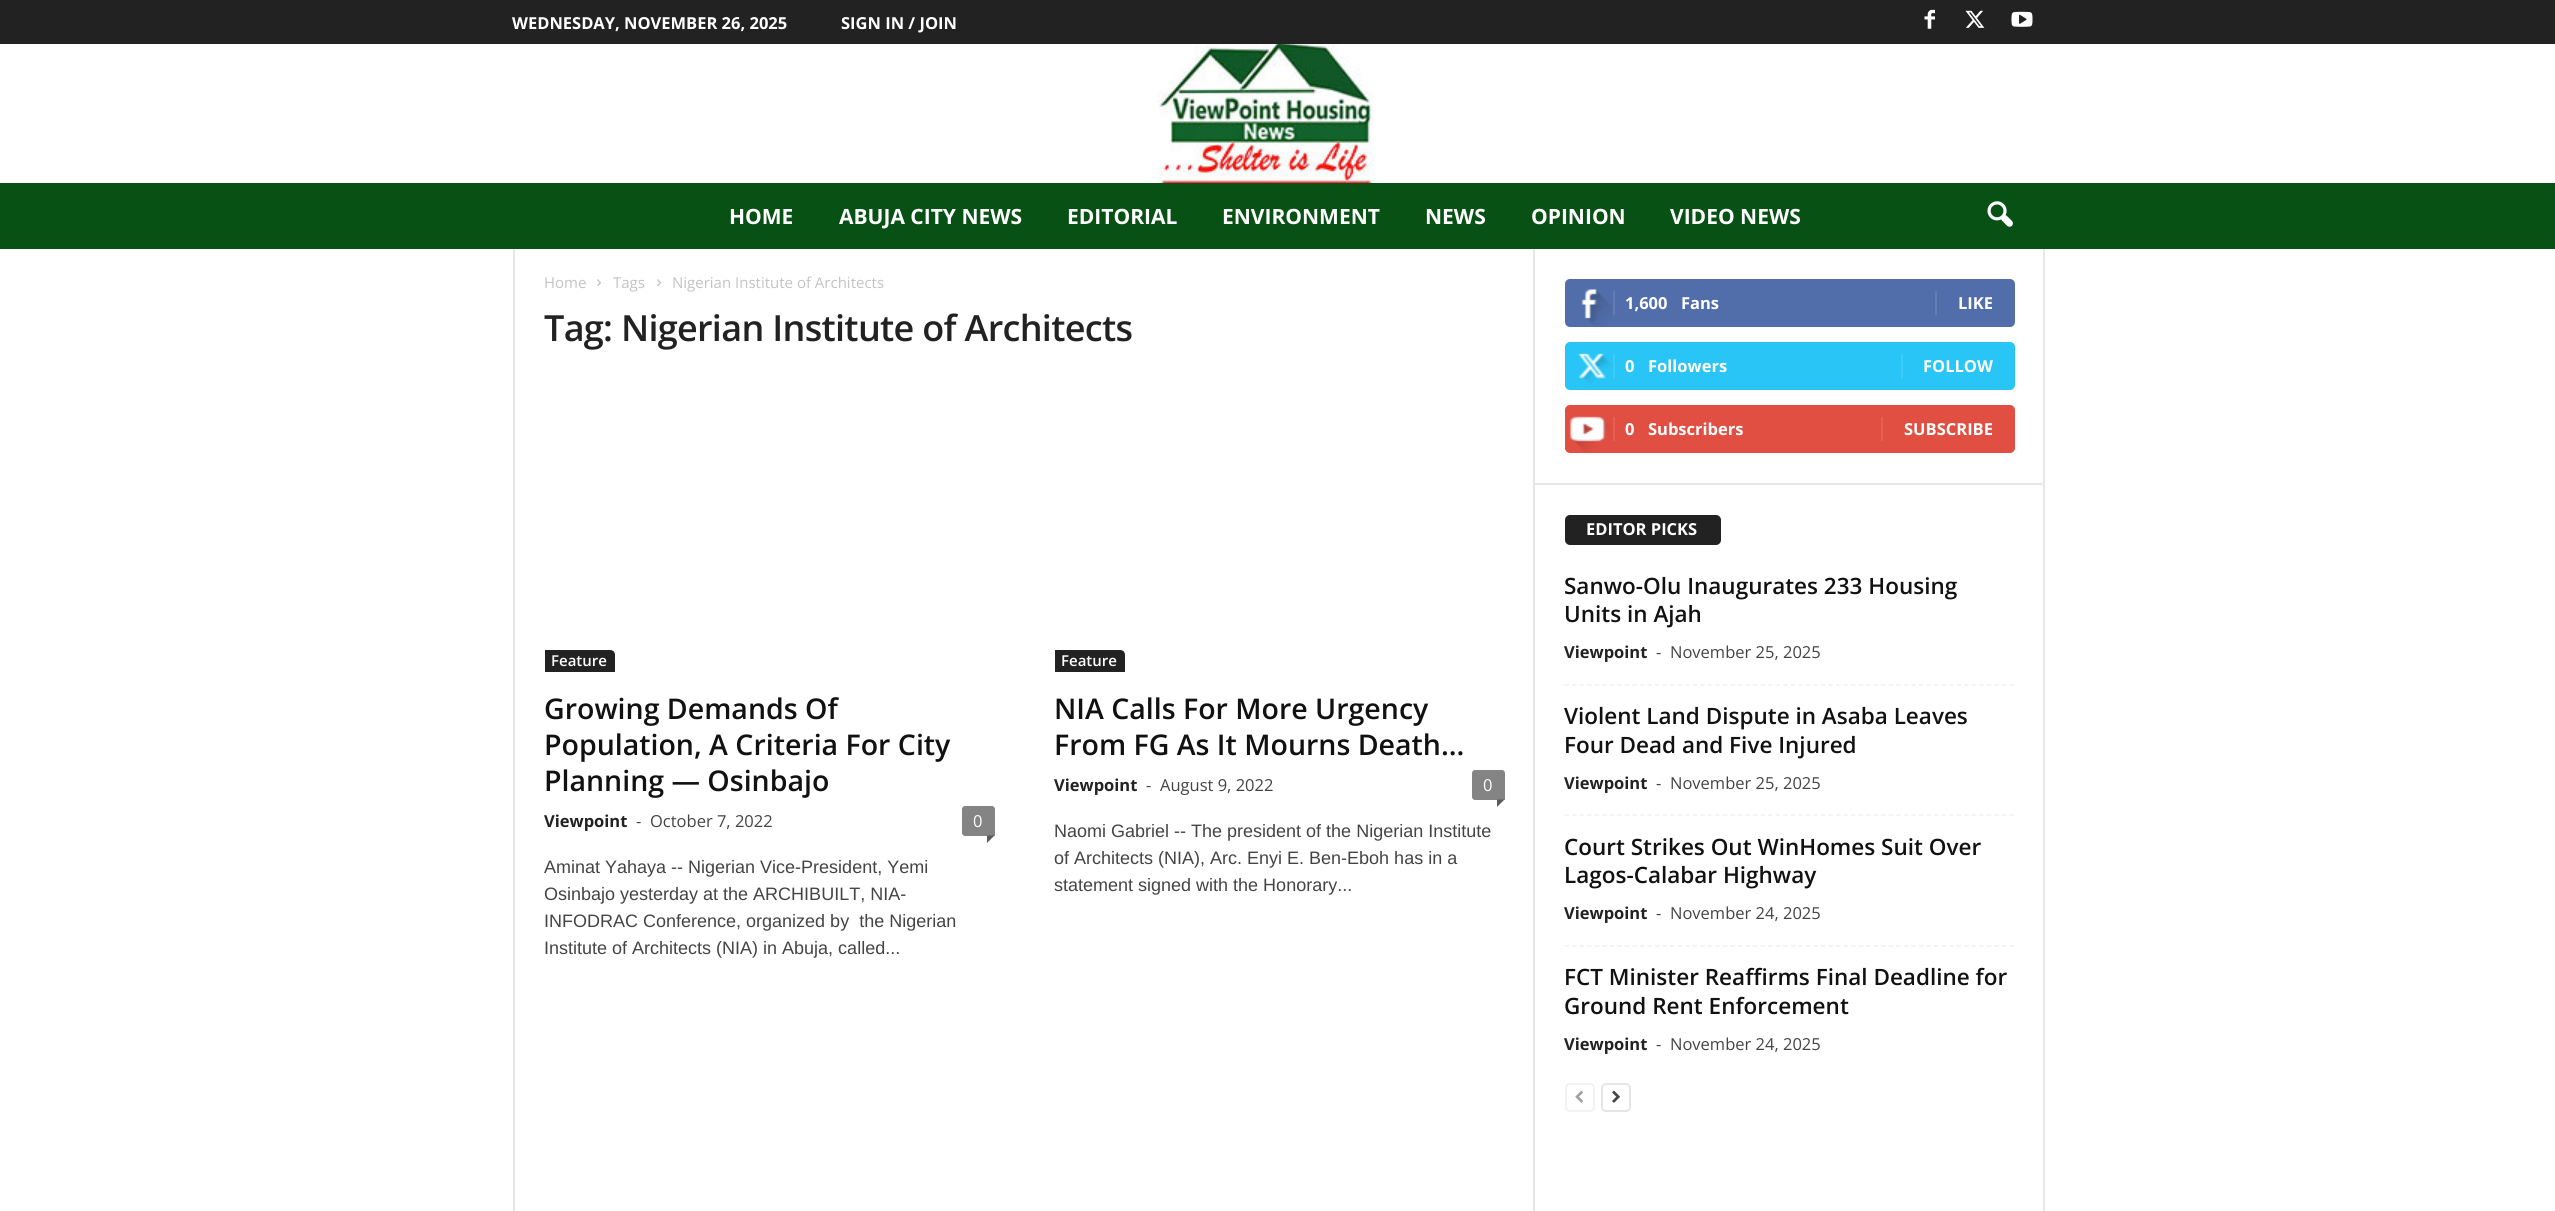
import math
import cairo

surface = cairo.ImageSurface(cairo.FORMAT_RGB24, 2555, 1211)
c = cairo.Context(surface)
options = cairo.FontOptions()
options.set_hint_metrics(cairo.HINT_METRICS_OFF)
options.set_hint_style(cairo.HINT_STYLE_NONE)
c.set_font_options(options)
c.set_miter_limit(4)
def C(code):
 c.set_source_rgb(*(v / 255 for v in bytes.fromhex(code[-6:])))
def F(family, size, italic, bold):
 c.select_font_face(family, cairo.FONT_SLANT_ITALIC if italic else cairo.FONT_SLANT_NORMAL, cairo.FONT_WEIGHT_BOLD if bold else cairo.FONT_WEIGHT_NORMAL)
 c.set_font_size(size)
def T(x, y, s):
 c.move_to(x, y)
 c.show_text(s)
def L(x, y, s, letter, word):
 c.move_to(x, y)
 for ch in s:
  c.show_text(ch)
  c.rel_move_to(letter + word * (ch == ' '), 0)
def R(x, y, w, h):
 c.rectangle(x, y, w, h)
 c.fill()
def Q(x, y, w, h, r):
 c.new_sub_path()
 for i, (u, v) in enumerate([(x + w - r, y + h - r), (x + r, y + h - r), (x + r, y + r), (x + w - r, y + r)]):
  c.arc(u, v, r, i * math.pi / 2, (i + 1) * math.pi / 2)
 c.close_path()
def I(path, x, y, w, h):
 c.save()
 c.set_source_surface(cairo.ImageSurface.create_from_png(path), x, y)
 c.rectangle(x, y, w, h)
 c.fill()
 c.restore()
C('ffffff')
c.paint()
C('222222')
R(0,0,2555,44)
F('Open Sans',16.5,0,1)
C('ffffff')
T(512,29,'WEDNESDAY, NOVEMBER 26, 2025')
T(841,29,'SIGN IN / JOIN')
I('1.png',1924,9,11,20)
I('2.png',1965,10,20,18)
I('3.png',2011,11,22,16)
I('4.png',1158,44,216,139)
C('085114')
R(0,183,2555,66)
F('Open Sans',21,0,1)
C('ffffff')
T(729,224,'HOME')
T(839,224,'ABUJA CITY NEWS')
T(1067,224,'EDITORIAL')
T(1222,224,'ENVIRONMENT')
T(1425,224,'NEWS')
T(1531,224,'OPINION')
T(1670,224,'VIDEO NEWS')
I('5.png',1987,201,26,26)
C('e6e6e6')
R(513,249,2,962)
F('Open Sans',15,0,0)
C('c3c3c3')
T(544,288,'Home')
I('6.png',597,279,4,8)
T(613,288,'Tags')
I('6.png',657,279,4,8)
T(672,288,'Nigerian Institute of Architects')
F('Open Sans SemiBold',36,0,0)
C('222222')
L(544,341,'Tag: Nigerian Institute of Architects',-.7,0)
c.new_path()
c.move_to(545,650)
c.line_to(610,650)
c.curve_to(613,650,615,652,615,655)
c.line_to(615,672)
c.line_to(545,672)
c.close_path()
c.fill()
F('Open Sans SemiBold',15,0,0)
C('ffffff')
T(551,666,'Feature')
F('Open Sans SemiBold',28.5,0,0)
C('111111')
T(544,719,'Growing Demands Of')
T(544,755,'Population, A Criteria For City')
T(544,791,'Planning — Osinbajo')
F('Open Sans',16.5,0,1)
C('222222')
T(544,827,'Viewpoint')
F('Open Sans',16.5,0,0)
C('444444')
T(636,827,'-')
T(650,827,'October 7, 2022')
C('848484')
c.new_path()
c.move_to(965,806)
c.line_to(992,806)
c.curve_to(993.5,806,995,807.5,995,809)
c.line_to(995,836)
c.line_to(965,836)
c.curve_to(963.5,836,962,834.5,962,833)
c.line_to(962,809)
c.curve_to(962,807.5,963.5,806,965,806)
c.close_path()
c.fill()
C('ffffff')
T(973,827,'0')
C('5b5b5b')
c.new_path()
c.move_to(987,835.5)
c.line_to(994.5,835.5)
c.line_to(987,843)
c.close_path()
c.fill()
F('Liberation Sans',18,0,0)
C('444444')
T(544,873,'Aminat Yahaya -- Nigerian Vice-President, Yemi')
T(544,900,'Osinbajo yesterday at the ARCHIBUILT, NIA-')
T(544,927,'INFODRAC Conference, organized by  the Nigerian')
T(544,954,'Institute of Architects (NIA) in Abuja, called...')
C('222222')
c.new_path()
c.move_to(1055,650)
c.line_to(1120,650)
c.curve_to(1123,650,1125,652,1125,655)
c.line_to(1125,672)
c.line_to(1055,672)
c.close_path()
c.fill()
F('Open Sans SemiBold',15,0,0)
C('ffffff')
T(1061,666,'Feature')
F('Open Sans SemiBold',28.5,0,0)
C('111111')
T(1054,719,'NIA Calls For More Urgency')
T(1054,755,'From FG As It Mourns Death...')
F('Open Sans',16.5,0,1)
C('222222')
T(1054,791,'Viewpoint')
F('Open Sans',16.5,0,0)
C('444444')
T(1146,791,'-')
T(1160,791,'August 9, 2022')
C('848484')
c.new_path()
c.move_to(1475,770)
c.line_to(1502,770)
c.curve_to(1503.5,770,1505,771.5,1505,773)
c.line_to(1505,800)
c.line_to(1475,800)
c.curve_to(1473.5,800,1472,798.5,1472,797)
c.line_to(1472,773)
c.curve_to(1472,771.5,1473.5,770,1475,770)
c.close_path()
c.fill()
C('ffffff')
T(1483,791,'0')
C('5b5b5b')
c.new_path()
c.move_to(1497,799.5)
c.line_to(1504.5,799.5)
c.line_to(1497,807)
c.close_path()
c.fill()
F('Liberation Sans',18,0,0)
C('444444')
T(1054,837,'Naomi Gabriel -- The president of the Nigerian Institute')
T(1054,864,'of Architects (NIA), Arc. Enyi E. Ben-Eboh has in a')
T(1054,891,'statement signed with the Honorary...')
C('e6e6e6')
R(1533,249,2,962)
C('516eab')
Q(1565,279,450,48,5)
c.fill()
I('7.png',1581,289,31,38)
C('627db3')
R(1613,291,2,24)
F('Open Sans',16.5,0,1)
C('ffffff')
T(1625,309,'1,600')
T(1681,309,'Fans')
C('627db3')
R(1935,291,2,24)
C('ffffff')
T(1958,309,'LIKE')
C('29c5f6')
Q(1565,342,450,48,5)
c.fill()
I('8.png',1577,353,35,32)
C('3ecbf7')
R(1613,354,2,24)
C('ffffff')
T(1625,372,'0')
T(1648,372,'Followers')
C('3ecbf7')
R(1901,354,2,24)
C('ffffff')
T(1923,372,'FOLLOW')
C('e14e42')
Q(1565,405,450,48,5)
c.fill()
I('9.png',1569,416,42,36)
C('e46055')
R(1613,417,2,24)
C('ffffff')
T(1625,435,'0')
T(1648,435,'Subscribers')
C('e46055')
R(1881,417,2,24)
C('ffffff')
T(1904,435,'SUBSCRIBE')
C('e6e6e6')
R(1535,483,508,2)
C('222222')
Q(1565,515,156,30,5)
c.fill()
C('ffffff')
T(1586,535,'EDITOR PICKS')
c.new_path()
c.move_to(1564.5,685)
c.line_to(2014.5,685)
C('f1f1f1')
c.set_line_width(1.5)
c.set_dash([4.5,3.04])
c.stroke()
F('Open Sans SemiBold',22.5,0,0)
C('111111')
T(1564,594,'Sanwo-Olu Inaugurates 233 Housing')
T(1564,622,'Units in Ajah')
F('Open Sans',16.5,0,1)
C('222222')
T(1564,658,'Viewpoint')
F('Open Sans',16.5,0,0)
C('444444')
T(1656,658,'-')
T(1670,658,'November 25, 2025')
c.new_path()
c.move_to(1564.5,815)
c.line_to(2014.5,815)
C('f1f1f1')
c.stroke()
F('Open Sans SemiBold',22.5,0,0)
C('111111')
T(1564,724,'Violent Land Dispute in Asaba Leaves')
T(1564,753,'Four Dead and Five Injured')
F('Open Sans',16.5,0,1)
C('222222')
T(1564,789,'Viewpoint')
F('Open Sans',16.5,0,0)
C('444444')
T(1656,789,'-')
T(1670,789,'November 25, 2025')
c.new_path()
c.move_to(1564.5,946)
c.line_to(2014.5,946)
C('f1f1f1')
c.stroke()
F('Open Sans SemiBold',22.5,0,0)
C('111111')
T(1564,855,'Court Strikes Out WinHomes Suit Over')
T(1564,883,'Lagos-Calabar Highway')
F('Open Sans',16.5,0,1)
C('222222')
T(1564,919,'Viewpoint')
F('Open Sans',16.5,0,0)
C('444444')
T(1656,919,'-')
T(1670,919,'November 24, 2025')
F('Open Sans SemiBold',22.5,0,0)
C('111111')
T(1564,985,'FCT Minister Reaffirms Final Deadline for')
T(1564,1014,'Ground Rent Enforcement')
F('Open Sans',16.5,0,1)
C('222222')
T(1564,1050,'Viewpoint')
F('Open Sans',16.5,0,0)
C('444444')
T(1656,1050,'-')
T(1670,1050,'November 24, 2025')
Q(1566,1084,28,27,4)
C('f3f3f3')
c.set_line_width(2)
c.set_dash([])
c.stroke()
I('10.png',1575,1090,8,13)
Q(1602,1084,28,27,4)
C('e6e6e6')
c.stroke()
I('11.png',1612,1090,8,13)
R(2043,249,2,962)
surface.write_to_png('o.png')
